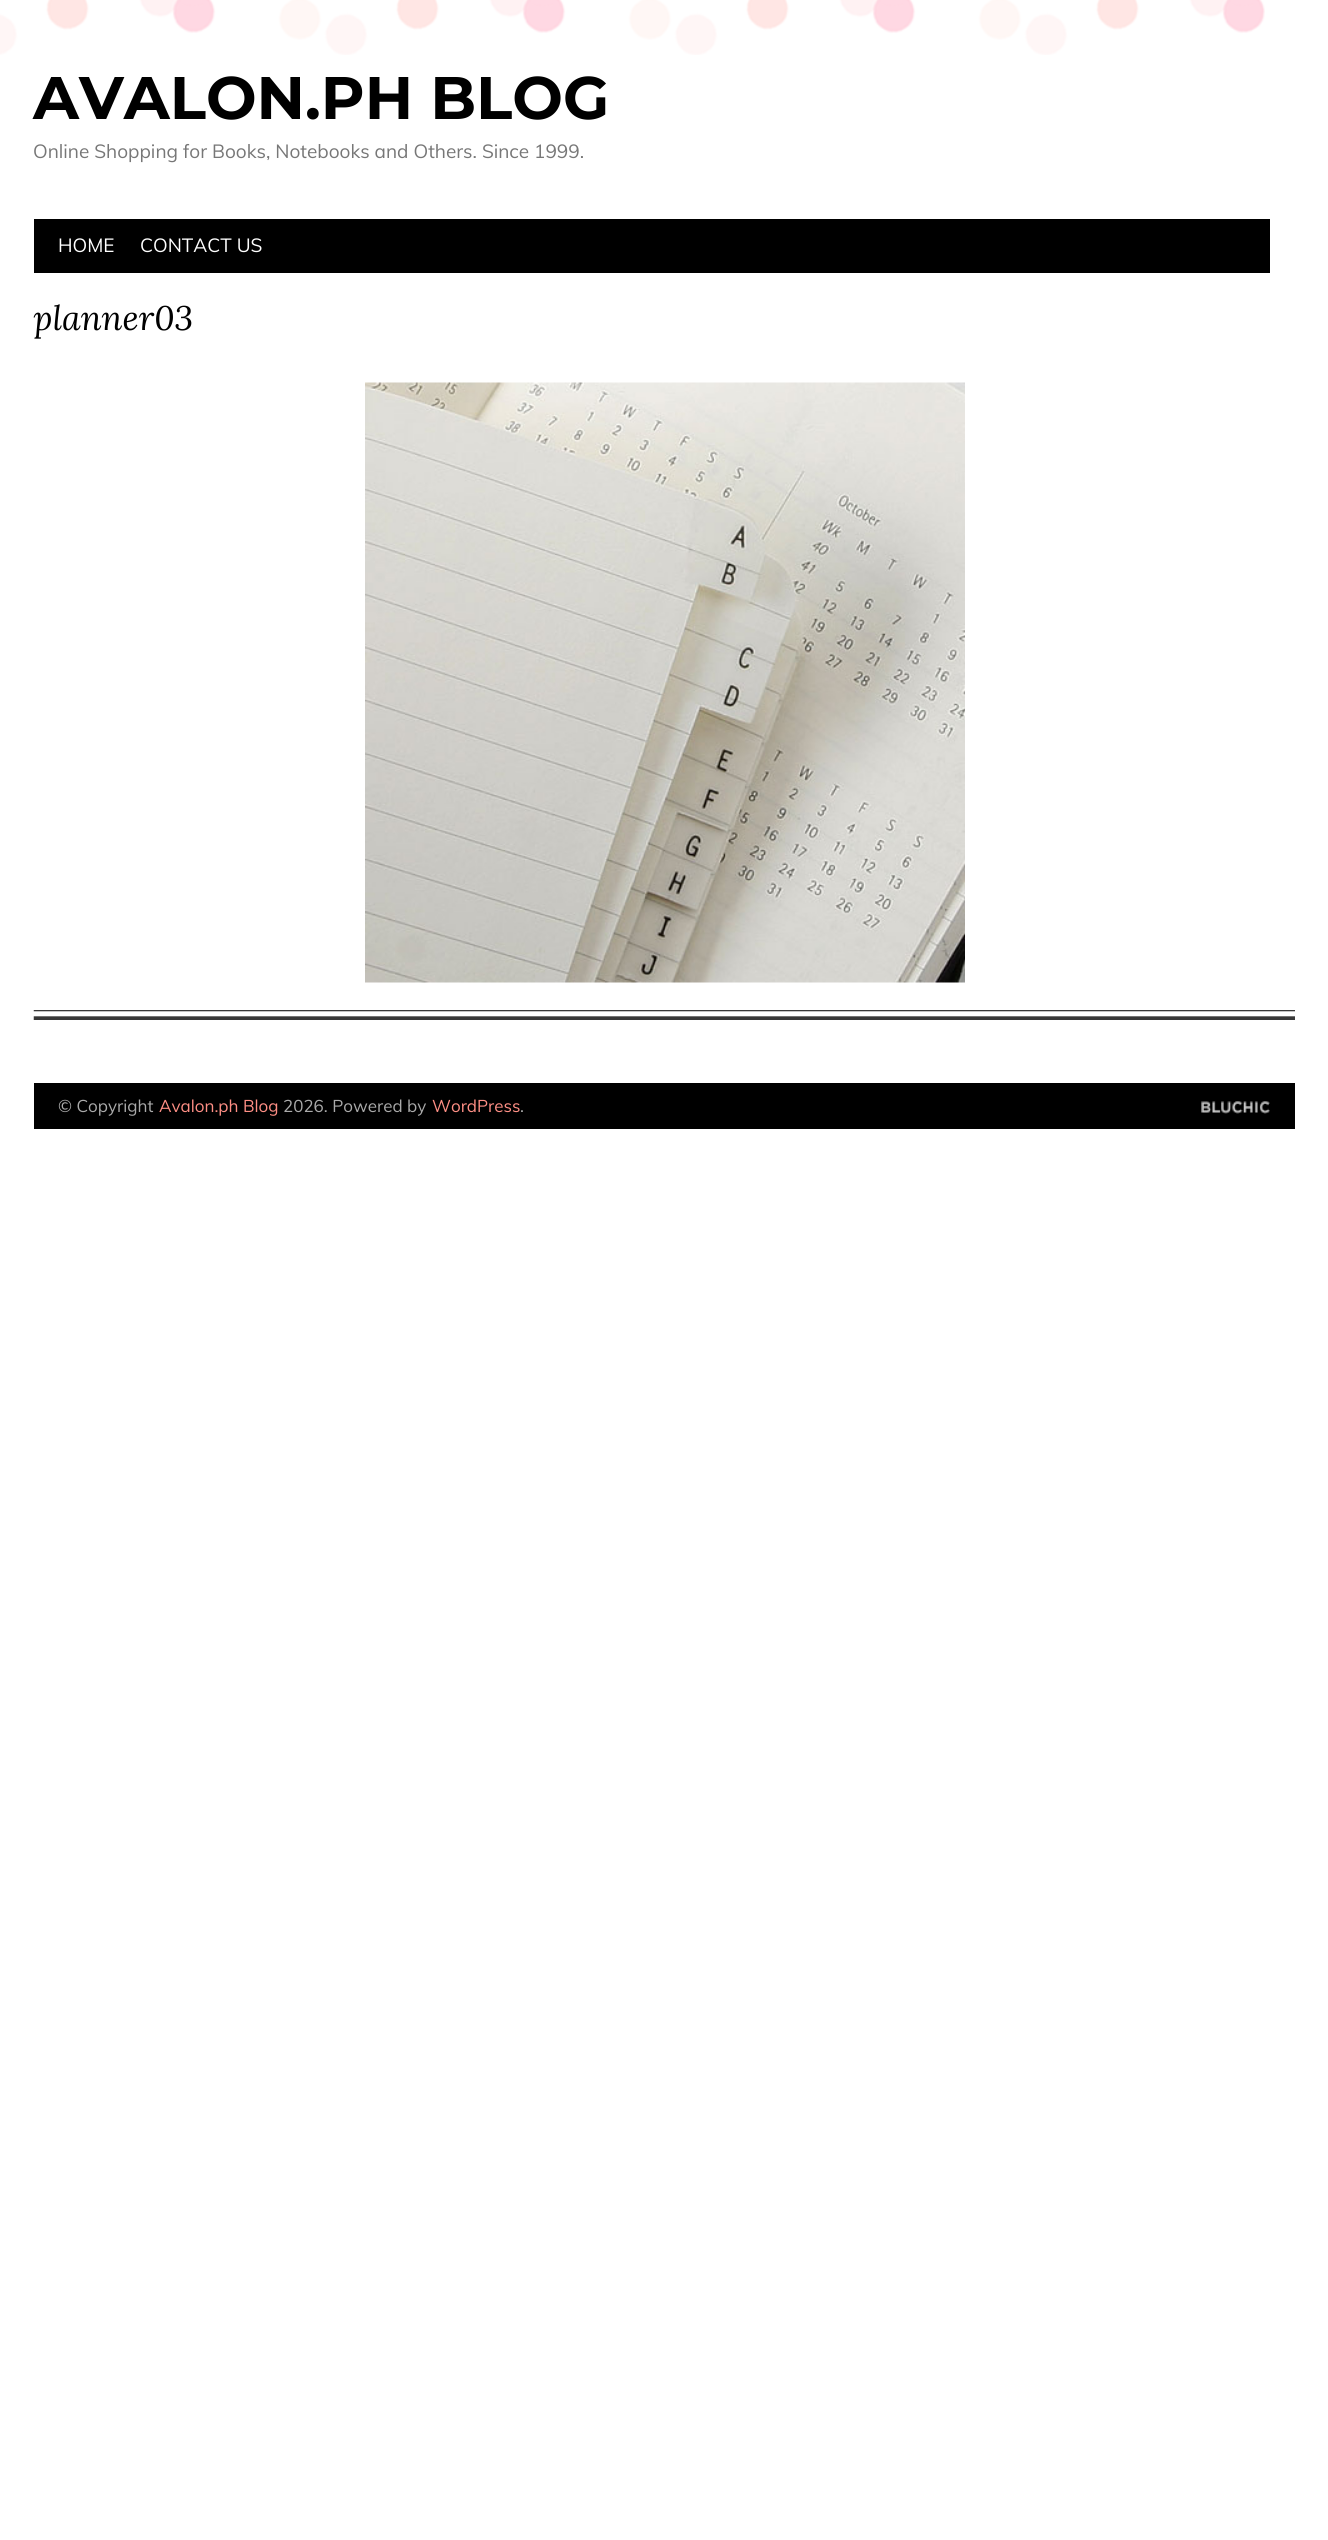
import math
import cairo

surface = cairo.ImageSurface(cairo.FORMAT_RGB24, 1328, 2540)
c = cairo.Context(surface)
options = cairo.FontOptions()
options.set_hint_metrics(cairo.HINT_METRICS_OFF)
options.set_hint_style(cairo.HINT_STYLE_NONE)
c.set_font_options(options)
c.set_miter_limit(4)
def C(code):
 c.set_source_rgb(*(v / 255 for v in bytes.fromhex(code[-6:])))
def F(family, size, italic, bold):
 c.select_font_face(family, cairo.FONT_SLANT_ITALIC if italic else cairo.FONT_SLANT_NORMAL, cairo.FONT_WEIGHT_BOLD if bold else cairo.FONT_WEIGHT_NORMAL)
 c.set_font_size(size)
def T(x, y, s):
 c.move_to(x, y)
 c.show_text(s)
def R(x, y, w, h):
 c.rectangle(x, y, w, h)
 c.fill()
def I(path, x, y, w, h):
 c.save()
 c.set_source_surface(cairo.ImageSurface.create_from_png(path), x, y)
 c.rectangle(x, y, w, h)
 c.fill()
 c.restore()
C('ffffff')
c.paint()
I('1.png',0,0,1265,55)
F('Montserrat',60,0,1)
C('000000')
T(33,119,'AVALON.PH BLOG')
F('Muli',19,0,0)
C('777777')
T(33,158,'Online Shopping for Books, Notebooks and Others. Since 1999.')
C('000000')
R(34,219,1236,54)
C('ffffff')
T(58,252,'HOME')
T(140,252,'CONTACT US')
I('2.png',33,1010,1262,10)
F('Lora',34,1,0)
C('000000')
T(33,330,'planner03')
I('3.png',365,382,600,601)
R(34,1083,1261,46)
F('Muli',17,0,0)
C('aaaaaa')
T(58,1112,'© Copyright')
C('ff8f85')
T(159,1112,'Avalon.ph Blog')
C('aaaaaa')
T(283,1112,'2026. Powered by')
C('ff8f85')
T(432,1112,'WordPress')
C('aaaaaa')
T(520,1112,'.')
I('4.png',1201,1101,69,13)
surface.write_to_png('o.png')
